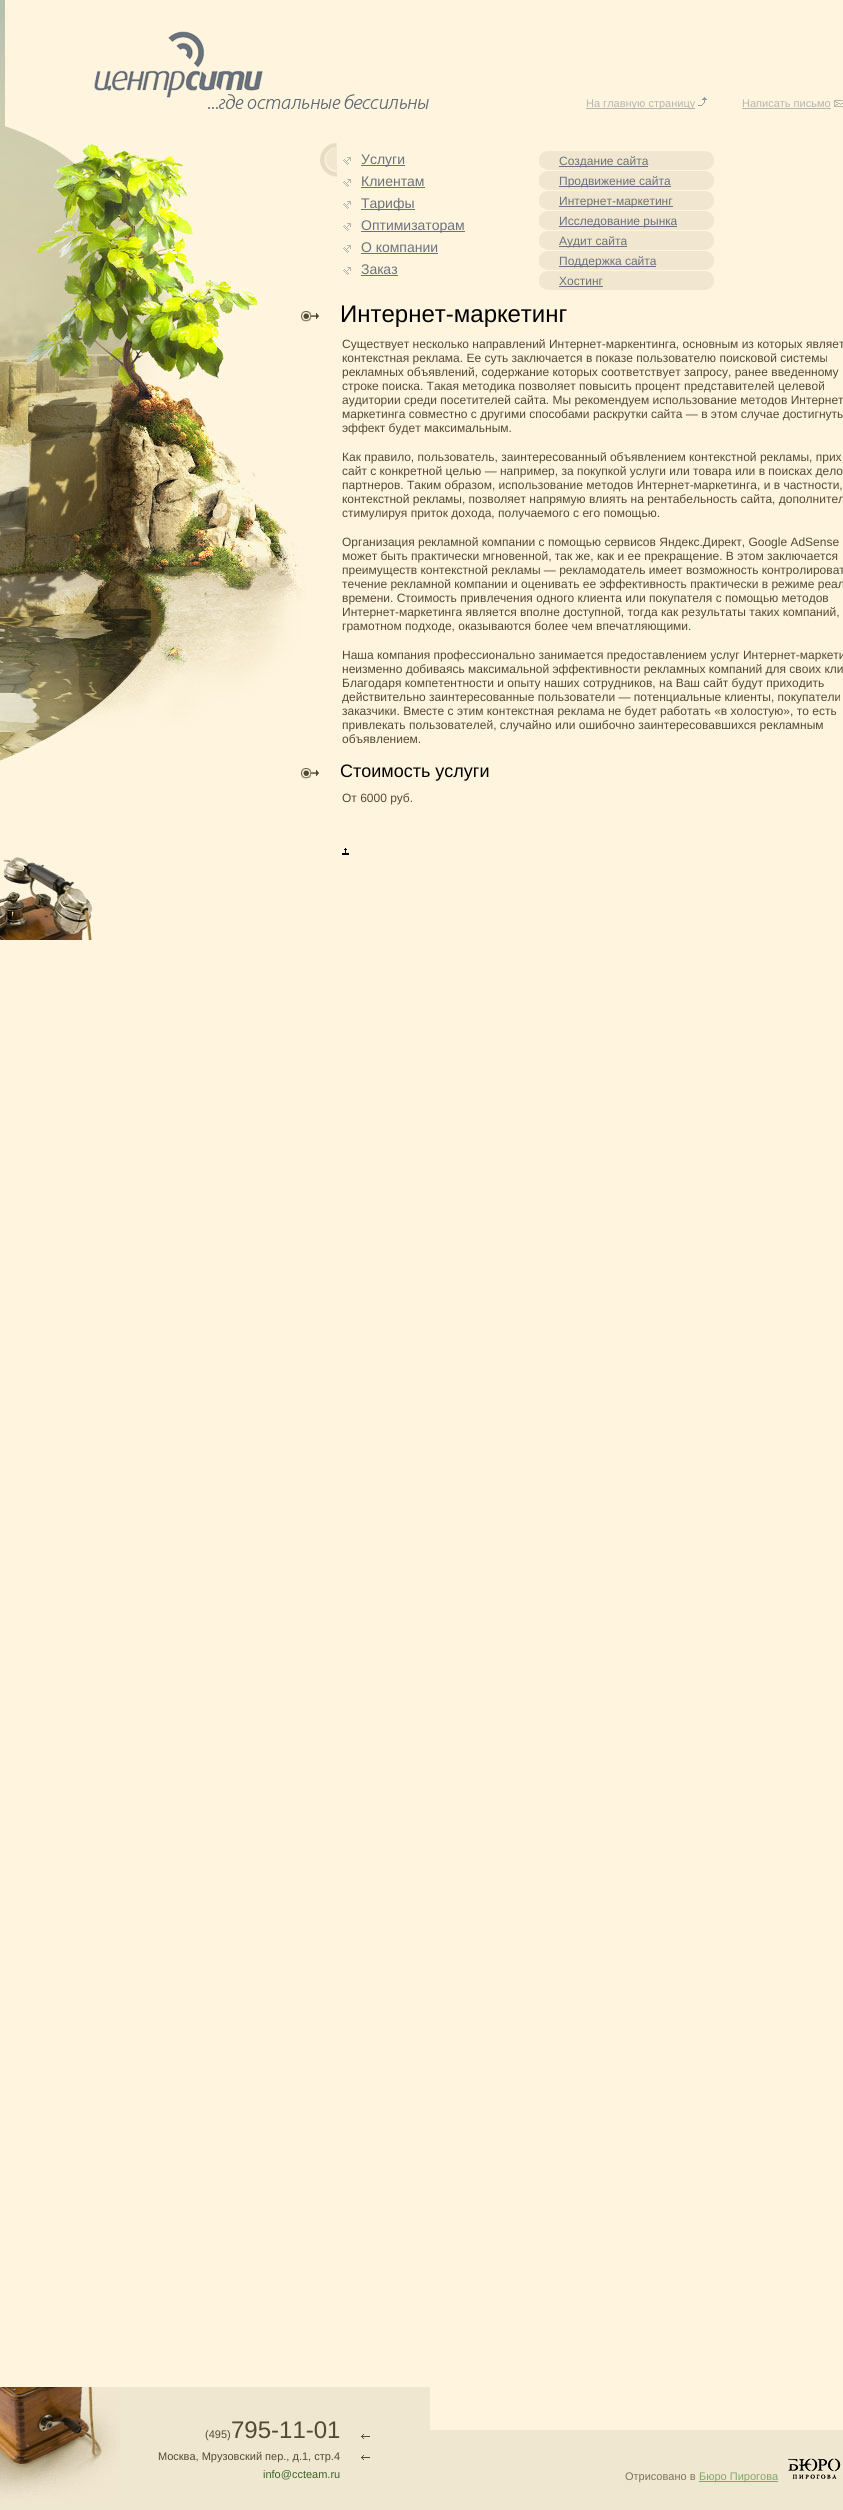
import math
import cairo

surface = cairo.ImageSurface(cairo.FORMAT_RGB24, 843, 2510)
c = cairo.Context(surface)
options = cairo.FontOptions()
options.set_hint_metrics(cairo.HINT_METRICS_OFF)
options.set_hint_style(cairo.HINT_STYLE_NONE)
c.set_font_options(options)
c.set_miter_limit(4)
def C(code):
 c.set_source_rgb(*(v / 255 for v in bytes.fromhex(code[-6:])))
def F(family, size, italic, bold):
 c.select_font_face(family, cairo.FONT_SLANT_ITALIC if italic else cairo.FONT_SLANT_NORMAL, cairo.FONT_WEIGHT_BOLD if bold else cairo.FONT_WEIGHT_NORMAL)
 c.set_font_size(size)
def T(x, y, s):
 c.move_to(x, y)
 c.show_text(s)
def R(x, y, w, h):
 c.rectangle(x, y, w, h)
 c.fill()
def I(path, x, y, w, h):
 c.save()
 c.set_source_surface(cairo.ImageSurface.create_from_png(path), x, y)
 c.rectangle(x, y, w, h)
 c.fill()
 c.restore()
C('fff5de')
c.paint()
I('1.png',0,0,305,762)
I('2.png',94,31,335,78)
C('b5b4ae')
R(586,108,109,1)
F('Liberation Sans',11,0,0)
T(586,107,'На главную страницу')
I('3.png',698,97,9,9)
T(742,107,'Написать письмо')
R(742,108,89,1)
I('4.png',834,100,9,7)
I('5.png',320,143,17,34)
I('6.png',343,157,8,8)
C('6a727c')
R(361,165,44,1)
F('Liberation Sans',14,0,0)
T(361,164,'Услуги')
I('7.png',539,151,20,19)
C('f1e7d0')
R(559,151,146,19)
C('6a727c')
R(559,166,89,1)
F('Liberation Sans',12,0,0)
T(559,165,'Создание сайта')
I('8.png',705,151,9,19)
I('7.png',539,171,20,19)
C('f1e7d0')
R(559,171,146,19)
C('6a727c')
R(559,186,112,1)
T(559,185,'Продвижение сайта')
I('8.png',705,171,9,19)
I('7.png',539,191,20,19)
C('f1e7d0')
R(559,191,146,19)
C('6a727c')
R(559,206,114,1)
T(559,205,'Интернет-маркетинг')
I('8.png',705,191,9,19)
I('7.png',539,211,20,19)
C('f1e7d0')
R(559,211,146,19)
C('6a727c')
R(559,226,118,1)
T(559,225,'Исследование рынка')
I('8.png',705,211,9,19)
I('7.png',539,231,20,19)
C('f1e7d0')
R(559,231,146,19)
C('6a727c')
R(559,246,68,1)
T(559,245,'Аудит сайта')
I('8.png',705,231,9,19)
I('7.png',539,251,20,19)
C('f1e7d0')
R(559,251,146,19)
C('6a727c')
R(559,266,97,1)
T(559,265,'Поддержка сайта')
I('8.png',705,251,9,19)
I('7.png',539,271,20,19)
C('f1e7d0')
R(559,271,146,19)
C('6a727c')
T(559,285,'Хостинг')
R(559,286,44,1)
I('8.png',705,271,9,19)
I('6.png',343,179,8,8)
F('Liberation Sans',14,0,0)
T(361,186,'Клиентам')
R(361,187,64,1)
I('6.png',343,201,8,8)
R(361,209,54,1)
T(361,208,'Тарифы')
I('6.png',343,223,8,8)
R(361,231,104,1)
T(361,230,'Оптимизаторам')
I('6.png',343,245,8,8)
T(361,252,'О компании')
R(361,253,77,1)
I('6.png',343,267,8,8)
T(361,274,'Заказ')
R(361,275,37,1)
I('9.png',301,311,18,11)
F('Liberation Sans',24,0,0)
C('000000')
T(340,322,'Интернет-маркетинг')
F('Liberation Sans',12,0,0)
C('534a35')
T(342,348,'Существует несколько направлений Интернет-маркентинга, основным из которых являет')
T(342,362,'контекстная реклама. Ее суть заключается в показе пользователю поисковой системы')
T(342,376,'рекламных объявлений, содержание которых соответствует запросу, ранее введенному')
T(342,390,'строке поиска. Такая методика позволяет повысить процент представителей целевой')
T(342,404,'аудитории среди посетителей сайта. Мы рекомендуем использование методов Интернет')
T(342,418,'маркетинга совместно с другими способами раскрутки сайта — в этом случае достигнуты')
T(342,432,'эффект будет максимальным.')
T(342,461,'Как правило, пользователь, заинтересованный объявлением контекстной рекламы, прих')
T(342,475,'сайт с конкретной целью — например, за покупкой услуги или товара или в поисках дело')
T(342,489,'партнеров. Таким образом, использование методов Интернет-маркетинга, и в частности,')
T(342,503,'контекстной рекламы, позволяет напрямую влиять на рентабельность сайта, дополнител')
T(342,517,'стимулируя приток дохода, получаемого с его помощью.')
T(342,546,'Организация рекламной компании с помощью сервисов Яндекс.Директ, Google AdSense')
T(342,560,'может быть практически мгновенной, так же, как и ее прекращение. В этом заключается')
T(342,574,'преимуществ контекстной рекламы — рекламодатель имеет возможность контролироват')
T(342,588,'течение рекламной компании и оценивать ее эффективность практически в режиме реал')
T(342,602,'времени. Стоимость привлечения одного клиента или покупателя с помощью методов')
T(342,616,'Интернет-маркетинга является вполне доступной, тогда как результаты таких компаний,')
T(342,630,'грамотном подходе, оказываются более чем впечатляющими.')
T(342,659,'Наша компания профессионально занимается предоставлением услуг Интернет-маркети')
T(342,673,'неизменно добиваясь максимальной эффективности рекламных компаний для своих кли')
T(342,687,'Благодаря компетентности и опыту наших сотрудников, на Ваш сайт будут приходить')
T(342,701,'действительно заинтересованные пользователи — потенциальные клиенты, покупатели')
T(342,715,'заказчики. Вместе с этим контекстная реклама не будет работать «в холостую», то есть')
T(342,729,'привлекать пользователей, случайно или ошибочно заинтересовавшихся рекламным')
T(342,743,'объявлением.')
I('10.png',301,768,18,11)
F('Liberation Sans',18,0,0)
C('000000')
T(340,777,'Стоимость услуги')
F('Liberation Sans',12,0,0)
C('534a35')
T(342,802,'От 6000 руб.')
I('11.png',342,848,7,7)
I('12.png',0,855,95,85)
C('f0e7d0')
R(0,2387,430,123)
I('13.png',0,2387,120,113)
I('14.png',361,2434,9,5)
F('Liberation Sans',11,0,0)
C('534a35')
T(205,2438,'(495)')
F('Liberation Sans',24,0,0)
T(231,2438,'795-11-01')
I('14.png',361,2455,9,5)
F('Liberation Sans',11,0,0)
T(158,2460,'Москва, Мрузовский пер., д.1, стр.4')
C('3b6426')
T(263,2478,'info@ccteam.ru')
C('f0e7d0')
R(430,2430,413,80)
C('7b735d')
T(625,2480,'Отрисовано в')
C('81a86c')
R(699,2481,79,1)
T(699,2480,'Бюро Пирогова')
I('15.png',788,2458,53,22)
surface.write_to_png('o.png')
